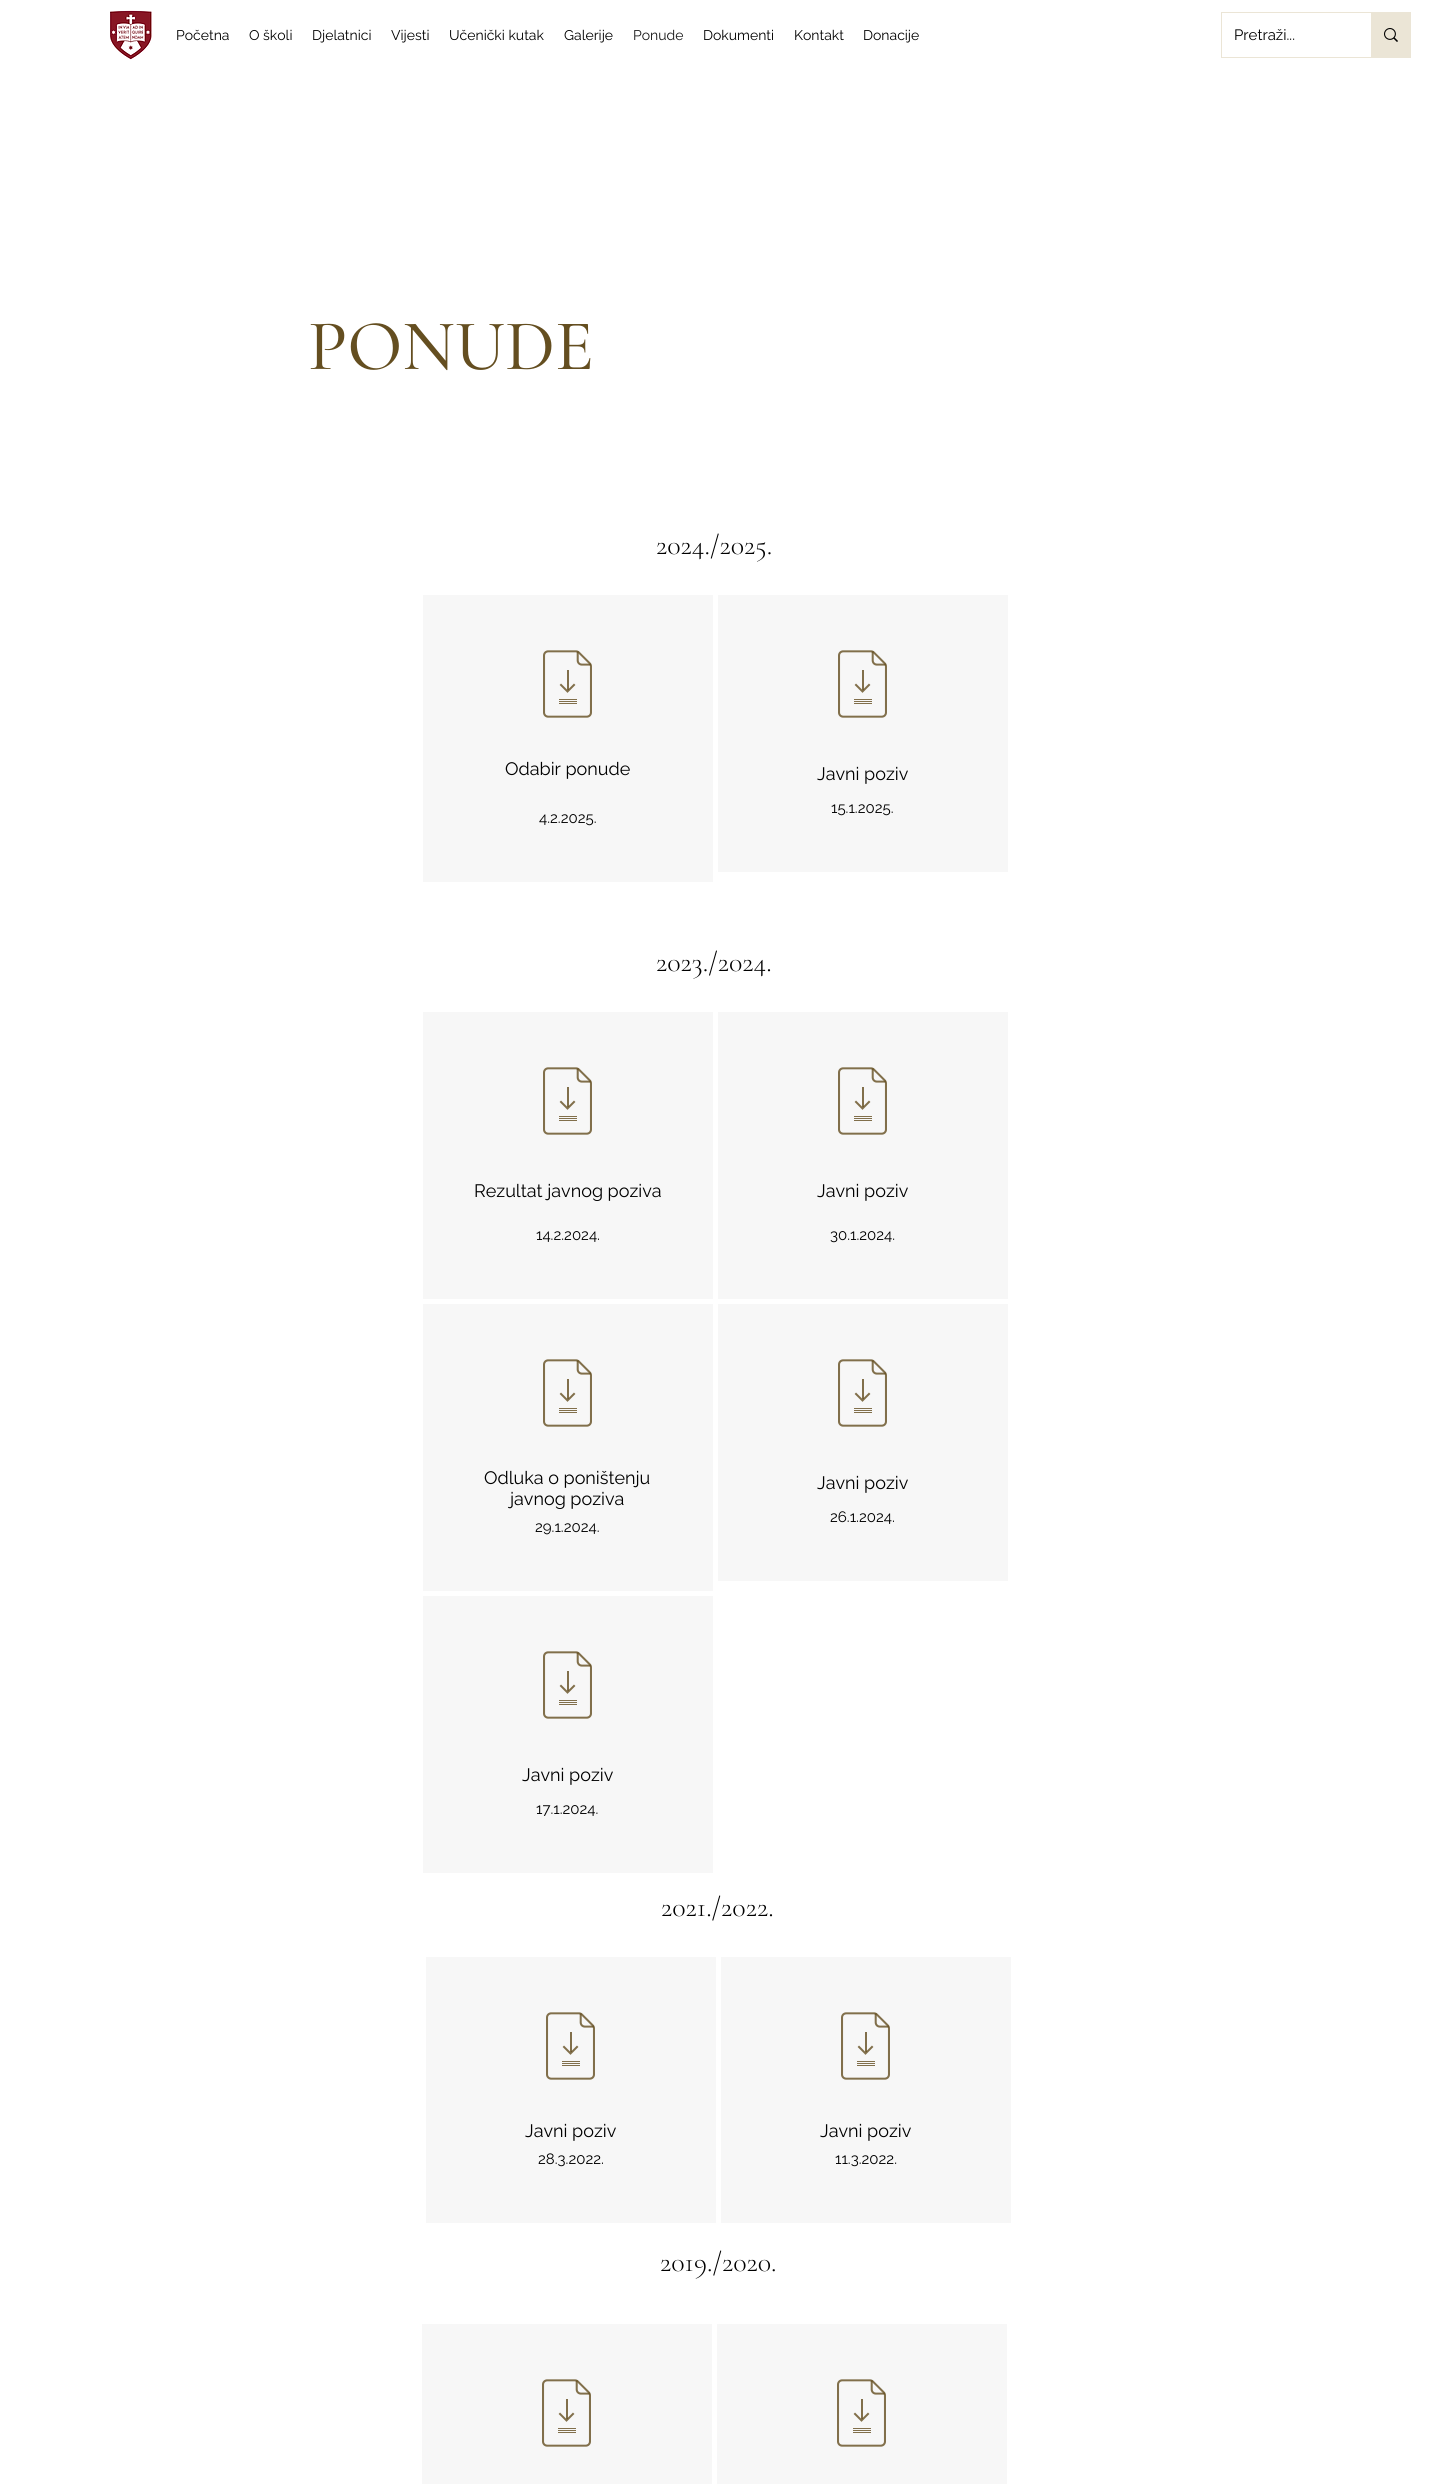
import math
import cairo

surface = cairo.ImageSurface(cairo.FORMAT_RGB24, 1430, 2484)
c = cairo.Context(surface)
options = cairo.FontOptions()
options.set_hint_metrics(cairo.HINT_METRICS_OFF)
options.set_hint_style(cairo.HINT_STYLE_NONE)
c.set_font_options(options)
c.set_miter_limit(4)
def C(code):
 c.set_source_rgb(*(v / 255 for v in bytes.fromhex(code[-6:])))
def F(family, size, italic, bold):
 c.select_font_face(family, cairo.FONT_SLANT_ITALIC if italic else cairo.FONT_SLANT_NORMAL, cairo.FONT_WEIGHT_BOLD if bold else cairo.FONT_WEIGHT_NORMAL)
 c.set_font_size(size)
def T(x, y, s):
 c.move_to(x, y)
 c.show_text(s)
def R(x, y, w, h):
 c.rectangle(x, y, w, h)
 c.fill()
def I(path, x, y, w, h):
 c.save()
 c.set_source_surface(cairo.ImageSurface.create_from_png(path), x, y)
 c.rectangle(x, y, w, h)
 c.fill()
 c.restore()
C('ffffff')
c.paint()
I('1.png',110,10,42,50)
F('Raleway',14,0,0)
C('000000')
T(176,40,'Početna')
T(249,40,'O školi')
T(312,40,'Djelatnici')
T(391,40,'Vijesti')
T(449,40,'Učenički kutak')
T(564,40,'Galerije')
C('191919')
T(633,40,'Ponude')
C('000000')
T(703,40,'Dokumenti')
T(794,40,'Kontakt')
T(863,40,'Donacije')
c.rectangle(1221.5,12.5,189,45)
C('ebe5d6')
c.set_line_width(1)
c.stroke()
F('Raleway',15,0,0)
C('000000')
T(1234,40,'Pretraži...')
C('ebe5d6')
R(1371,13,39,44)
I('2.png',1384,28,14,14)
F('Cormorant Garamond Medium',72,0,0)
C('644e20')
T(308,369,'PONUDE')
F('Cormorant Garamond Light',28,0,0)
C('000000')
T(656,554,'2024./2025.')
C('f7f7f7')
R(423,595,290,287)
I('3.png',543,650,49,68)
F('Raleway',18,0,0)
C('000000')
T(505,775,'Odabir ponude')
F('Raleway',15,0,0)
T(539,823,'4.2.2025.')
C('f7f7f7')
R(718,595,290,277)
I('3.png',838,650,49,68)
F('Raleway',18,0,0)
C('000000')
T(817,780,'Javni poziv')
F('Raleway',15,0,0)
T(831,813,'15.1.2025.')
F('Cormorant Garamond Light',28,0,0)
T(656,971,'2023./2024.')
C('f7f7f7')
R(423,1012,290,287)
I('3.png',543,1067,49,68)
F('Raleway',18,0,0)
C('000000')
T(474,1197,'Rezultat javnog poziva')
F('Raleway',15,0,0)
T(536,1240,'14.2.2024.')
C('f7f7f7')
R(423,1304,290,287)
I('3.png',543,1359,49,68)
F('Raleway',18,0,0)
C('000000')
T(484,1484,'Odluka o poništenju')
T(510,1505,'javnog poziva')
F('Raleway',15,0,0)
T(535,1532,'29.1.2024.')
C('f7f7f7')
R(423,1596,290,277)
I('3.png',543,1651,49,68)
F('Raleway',18,0,0)
C('000000')
T(522,1781,'Javni poziv')
F('Raleway',15,0,0)
T(536,1814,'17.1.2024.')
C('f7f7f7')
R(718,1012,290,287)
I('3.png',838,1067,49,68)
F('Raleway',18,0,0)
C('000000')
T(817,1197,'Javni poziv')
F('Raleway',15,0,0)
T(830,1240,'30.1.2024.')
C('f7f7f7')
R(718,1304,290,277)
I('3.png',838,1359,49,68)
F('Raleway',18,0,0)
C('000000')
T(817,1489,'Javni poziv')
F('Raleway',15,0,0)
T(830,1522,'26.1.2024.')
F('Cormorant Garamond Light',28,0,0)
T(661,1916,'2021./2022.')
C('f7f7f7')
R(426,1957,290,266)
I('3.png',546,2012,49,68)
F('Raleway',18,0,0)
C('000000')
T(525,2137,'Javni poziv')
F('Raleway',15,0,0)
T(538,2164,'28.3.2022.')
C('f7f7f7')
R(721,1957,290,266)
I('3.png',841,2012,49,68)
F('Raleway',18,0,0)
C('000000')
T(820,2137,'Javni poziv')
F('Raleway',15,0,0)
T(835,2164,'11.3.2022.')
F('Cormorant Garamond Light',28,0,0)
T(660,2271,'2019./2020.')
C('f7f7f7')
R(422,2324,290,160)
I('3.png',542,2379,49,68)
R(717,2324,290,160)
I('3.png',837,2379,49,68)
surface.write_to_png('o.png')
